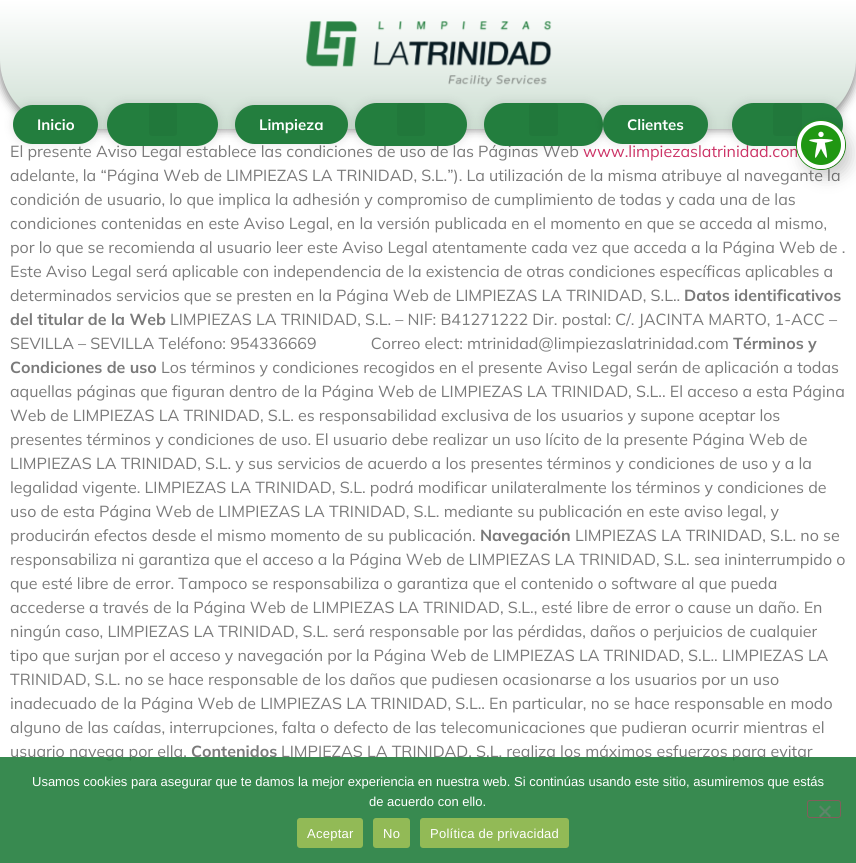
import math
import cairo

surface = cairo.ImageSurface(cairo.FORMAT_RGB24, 856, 863)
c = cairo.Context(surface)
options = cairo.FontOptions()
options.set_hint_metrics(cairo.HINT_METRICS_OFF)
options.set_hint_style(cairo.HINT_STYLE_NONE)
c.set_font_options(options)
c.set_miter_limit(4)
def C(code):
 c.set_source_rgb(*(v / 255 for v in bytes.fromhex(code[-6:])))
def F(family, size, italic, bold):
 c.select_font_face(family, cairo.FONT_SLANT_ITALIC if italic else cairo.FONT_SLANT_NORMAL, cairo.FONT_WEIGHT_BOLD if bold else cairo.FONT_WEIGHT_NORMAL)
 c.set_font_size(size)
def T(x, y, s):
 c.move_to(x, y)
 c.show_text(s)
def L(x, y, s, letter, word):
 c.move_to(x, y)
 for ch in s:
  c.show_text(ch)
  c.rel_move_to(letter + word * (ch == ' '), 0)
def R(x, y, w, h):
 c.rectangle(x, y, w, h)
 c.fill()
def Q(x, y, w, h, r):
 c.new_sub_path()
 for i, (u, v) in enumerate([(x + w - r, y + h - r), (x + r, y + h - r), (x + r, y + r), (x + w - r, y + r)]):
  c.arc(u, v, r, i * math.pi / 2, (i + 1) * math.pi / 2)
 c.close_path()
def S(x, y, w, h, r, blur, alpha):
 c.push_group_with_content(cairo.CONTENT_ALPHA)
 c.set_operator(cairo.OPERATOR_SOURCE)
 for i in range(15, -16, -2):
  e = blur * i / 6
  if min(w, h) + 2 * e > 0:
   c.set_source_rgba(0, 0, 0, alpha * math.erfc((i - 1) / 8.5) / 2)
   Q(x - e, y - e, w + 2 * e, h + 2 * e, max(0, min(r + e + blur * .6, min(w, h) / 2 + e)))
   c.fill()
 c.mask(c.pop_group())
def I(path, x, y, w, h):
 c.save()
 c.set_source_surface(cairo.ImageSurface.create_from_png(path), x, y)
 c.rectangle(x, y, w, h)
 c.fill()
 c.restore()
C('ffffff')
c.paint()
C('000000')
S(0,0,856,129,70,5,.5)
gradient = cairo.LinearGradient(428,0,428,129)
gradient.add_color_stop_rgba(0,1,1,1,1)
gradient.add_color_stop_rgba(1,0.804,0.871,0.824,1)
c.set_source(gradient)
c.new_path()
c.move_to(0,0)
c.line_to(856,0)
c.line_to(856,59)
c.curve_to(856,97.5,824.5,129,786,129)
c.line_to(70,129)
c.curve_to(31.5,129,0,97.5,0,59)
c.close_path()
c.fill()
I('1.png',306,21,246,66)
C('000000')
S(13,105,85,39,19.5,5,.11)
C('237e3e')
Q(13,105,85,39,19.5)
c.fill()
F('Mulish',15,0,1)
C('ffffff')
T(37,130,'Inicio')
C('000000')
S(107,103,111,43,21.5,5,.11)
F('Mulish',16,0,0)
C('7a7a7a')
T(10,157,'El presente Aviso Legal establece las condiciones de uso de las Páginas Web')
C('237e3e')
Q(107,103,111,43,21.5)
c.fill()
C('21783b')
Q(149,103,28,33,3)
c.fill()
C('000000')
S(235,105,113,39,19.5,5,.11)
C('237e3e')
Q(235,105,113,39,19.5)
c.fill()
F('Mulish',15,0,1)
C('ffffff')
T(259,130,'Limpieza')
C('000000')
S(355,103,112,43,21.5,5,.11)
C('237e3e')
Q(355,103,112,43,21.5)
c.fill()
C('21783b')
Q(397,103,28,33,3)
c.fill()
C('000000')
S(484,103,119,43,21.5,5,.11)
F('Mulish',16,0,0)
C('cc3366')
T(583,157,'www.limpiezaslatrinidad.com')
C('237e3e')
Q(484,103,119,43,21.5)
c.fill()
C('21783b')
Q(529,103,29,33,3)
c.fill()
C('000000')
S(603,105,105,39,19.5,5,.11)
C('237e3e')
Q(603,105,105,39,19.5)
c.fill()
F('Mulish',15,0,1)
C('ffffff')
T(627,130,'Clientes')
C('000000')
S(732,103,111,43,21.5,5,.11)
C('237e3e')
Q(732,103,111,43,21.5)
c.fill()
C('21783b')
Q(773,103,29,33,3)
c.fill()
F('Mulish',16,0,0)
C('7a7a7a')
T(10,181,'adelante, la “Página Web de LIMPIEZAS LA TRINIDAD, S.L.”). La utilización de la misma atribuye al navegante la')
c.new_path()
c.arc(821,145,24.5,0,2 * math.pi)
C('209712')
c.set_line_width(1)
c.stroke()
C('000000')
S(803,129,48,48,24,8,.2)
C('209712')
c.arc(821,145,22,0,2 * math.pi)
c.fill_preserve()
C('ffffff')
c.set_line_width(4)
c.stroke()
I('2.png',809,131,24,27)
C('7a7a7a')
T(10,205,'condición de usuario, lo que implica la adhesión y compromiso de cumplimiento de todas y cada una de las')
T(10,229,'condiciones contenidas en este Aviso Legal, en la versión publicada en el momento en que se acceda al mismo,')
T(10,253,'por lo que se recomienda al usuario leer este Aviso Legal atentamente cada vez que acceda a la Página Web de .')
T(10,277,'Este Aviso Legal será aplicable con independencia de la existencia de otras condiciones específicas aplicables a')
T(10,301,'determinados servicios que se presten en la Página Web de LIMPIEZAS LA TRINIDAD, S.L..')
F('Mulish',16,0,1)
T(684,301,'Datos identificativos')
T(10,325,'del titular de la Web')
F('Mulish',16,0,0)
T(170,325,'LIMPIEZAS LA TRINIDAD, S.L. – NIF: B41271222 Dir. postal: C/. JACINTA MARTO, 1-ACC –')
T(10,349,'SEVILLA – SEVILLA Teléfono: 954336669             Correo elect: mtrinidad@limpiezaslatrinidad.com')
F('Mulish',16,0,1)
T(733,349,'Términos y')
T(10,373,'Condiciones de uso')
F('Mulish',16,0,0)
T(161,373,'Los términos y condiciones recogidos en el presente Aviso Legal serán de aplicación a todas')
T(10,397,'aquellas páginas que figuran dentro de la Página Web de LIMPIEZAS LA TRINIDAD, S.L.. El acceso a esta Página')
T(10,421,'Web de LIMPIEZAS LA TRINIDAD, S.L. es responsabilidad exclusiva de los usuarios y supone aceptar los')
T(10,445,'presentes términos y condiciones de uso. El usuario debe realizar un uso lícito de la presente Página Web de')
T(10,469,'LIMPIEZAS LA TRINIDAD, S.L. y sus servicios de acuerdo a los presentes términos y condiciones de uso y a la')
T(10,493,'legalidad vigente. LIMPIEZAS LA TRINIDAD, S.L. podrá modificar unilateralmente los términos y condiciones de')
T(10,517,'uso de esta Página Web de LIMPIEZAS LA TRINIDAD, S.L. mediante su publicación en este aviso legal, y')
T(10,541,'producirán efectos desde el mismo momento de su publicación.')
F('Mulish',16,0,1)
T(480,541,'Navegación')
F('Mulish',16,0,0)
T(575,541,'LIMPIEZAS LA TRINIDAD, S.L. no se')
T(10,565,'responsabiliza ni garantiza que el acceso a la Página Web de LIMPIEZAS LA TRINIDAD, S.L. sea ininterrumpido o')
T(10,589,'que esté libre de error. Tampoco se responsabiliza o garantiza que el contenido o software al que pueda')
T(10,613,'accederse a través de la Página Web de LIMPIEZAS LA TRINIDAD, S.L., esté libre de error o cause un daño. En')
T(10,637,'ningún caso, LIMPIEZAS LA TRINIDAD, S.L. será responsable por las pérdidas, daños o perjuicios de cualquier')
T(10,661,'tipo que surjan por el acceso y navegación por la Página Web de LIMPIEZAS LA TRINIDAD, S.L.. LIMPIEZAS LA')
T(10,685,'TRINIDAD, S.L. no se hace responsable de los daños que pudiesen ocasionarse a los usuarios por un uso')
T(10,709,'inadecuado de la Página Web de LIMPIEZAS LA TRINIDAD, S.L.. En particular, no se hace responsable en modo')
T(10,733,'alguno de las caídas, interrupciones, falta o defecto de las telecomunicaciones que pudieran ocurrir mientras el')
T(10,757,'usuario navega por ella.')
F('Mulish',16,0,1)
T(191,757,'Contenidos')
F('Mulish',16,0,0)
T(281,757,'LIMPIEZAS LA TRINIDAD, S.L. realiza los máximos esfuerzos para evitar')
c.set_source_rgba(0.137,0.494,0.243,0.9)
R(0,757,856,106)
F('Liberation Sans',13,0,0)
C('ffffff')
T(32,786,'Usamos cookies para asegurar que te damos la mejor experiencia en nuestra web. Si continúas usando este sitio, asumiremos que estás')
T(369,806,'de acuerdo con ello.')
Q(807.5,800.5,33,17,2.5)
c.set_source_rgba(0.8,0.2,0.4,0.5)
c.set_line_width(1)
c.stroke()
C('5d8569')
c.new_path()
c.move_to(829.5,805.5)
c.line_to(831,807)
c.line_to(820.5,817.5)
c.line_to(819,816)
c.close_path()
c.fill()
c.new_path()
c.move_to(819,807)
c.line_to(820.5,805.5)
c.line_to(831,816)
c.line_to(829.5,817.5)
c.close_path()
c.fill()
C('92ba56')
Q(297,818,66,30,3)
c.fill()
C('ffffff')
L(307,838,'Aceptar',.25,0)
C('92ba56')
Q(373,818,37,30,3)
c.fill()
C('ffffff')
L(383,838,'No',.25,0)
C('92ba56')
Q(420,818,149,30,3)
c.fill()
C('ffffff')
L(430,838,'Política de privacidad',.25,0)
surface.write_to_png('o.png')
